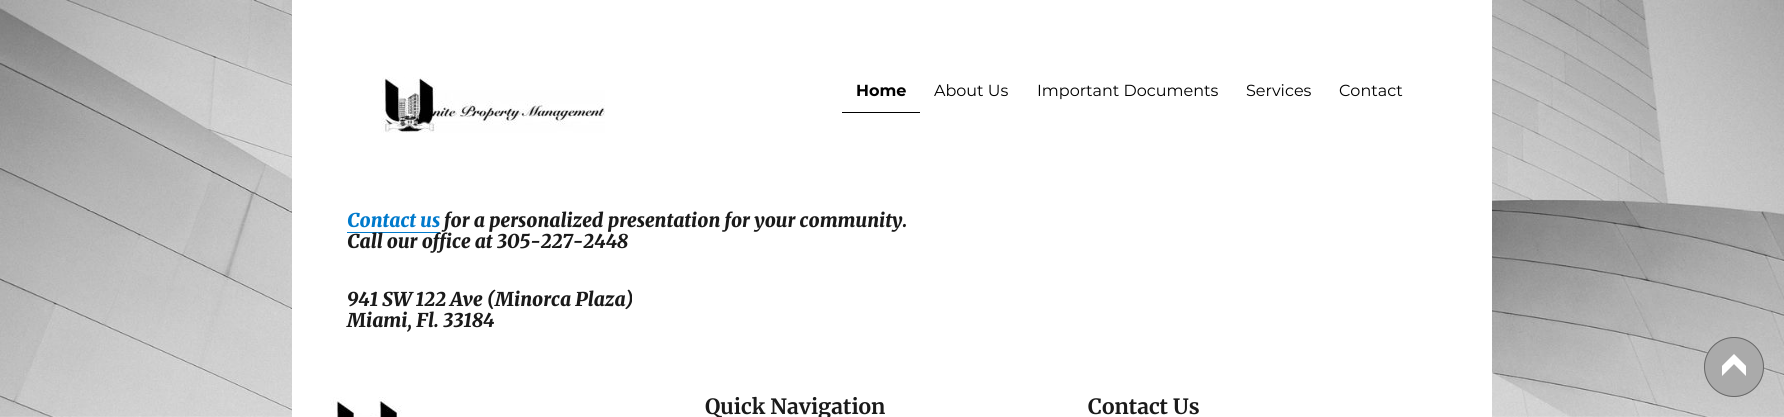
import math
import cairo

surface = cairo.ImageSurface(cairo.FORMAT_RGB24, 1784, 417)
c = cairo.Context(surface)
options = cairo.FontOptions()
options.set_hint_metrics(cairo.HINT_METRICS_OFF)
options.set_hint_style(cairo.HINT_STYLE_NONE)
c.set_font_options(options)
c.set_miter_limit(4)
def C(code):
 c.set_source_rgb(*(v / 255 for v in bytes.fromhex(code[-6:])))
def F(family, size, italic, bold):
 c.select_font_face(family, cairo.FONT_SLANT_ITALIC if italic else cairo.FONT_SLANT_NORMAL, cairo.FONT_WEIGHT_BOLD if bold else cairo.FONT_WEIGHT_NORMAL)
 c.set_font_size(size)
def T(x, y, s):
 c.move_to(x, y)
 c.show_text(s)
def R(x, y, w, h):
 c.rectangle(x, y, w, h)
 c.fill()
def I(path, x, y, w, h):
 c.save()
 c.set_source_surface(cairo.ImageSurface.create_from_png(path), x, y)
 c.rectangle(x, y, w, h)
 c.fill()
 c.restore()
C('ffffff')
c.paint()
I('1.png',0,0,1784,417)
C('ffffff')
R(292,0,1200,417)
I('2.png',381,77,224,56)
C('000000')
R(842,112,78,1)
F('Montserrat',16,0,1)
T(856,96,'Home')
F('Montserrat',16,0,0)
T(934,96,'About Us')
T(1037,96,'Important Documents')
T(1246,96,'Services')
T(1339,96,'Contact')
F('Merriweather Black',19,1,0)
C('007acc')
T(347,227,'Contact us')
R(347,232,93,1)
C('1a1a1a')
T(444,227,'for a personalized presentation for your community.')
T(347,248,'Call our office at 305-227-2448')
T(347,306,'941 SW 122 Ave (Minorca Plaza)')
T(347,327,'Miami, Fl. 33184')
I('3.png',330,397,72,20)
F('Merriweather',21,0,1)
T(705,414,'Quick Navigation')
T(1088,414,'Contact Us')
C('aaaaaa')
c.new_path()
c.arc(1734,367,30,0,2 * math.pi)
c.fill()
I('4.png',1722,354,24,22)
c.arc(1734,367,29.5,0,2 * math.pi)
C('686868')
c.set_line_width(1)
c.stroke()
surface.write_to_png('o.png')
